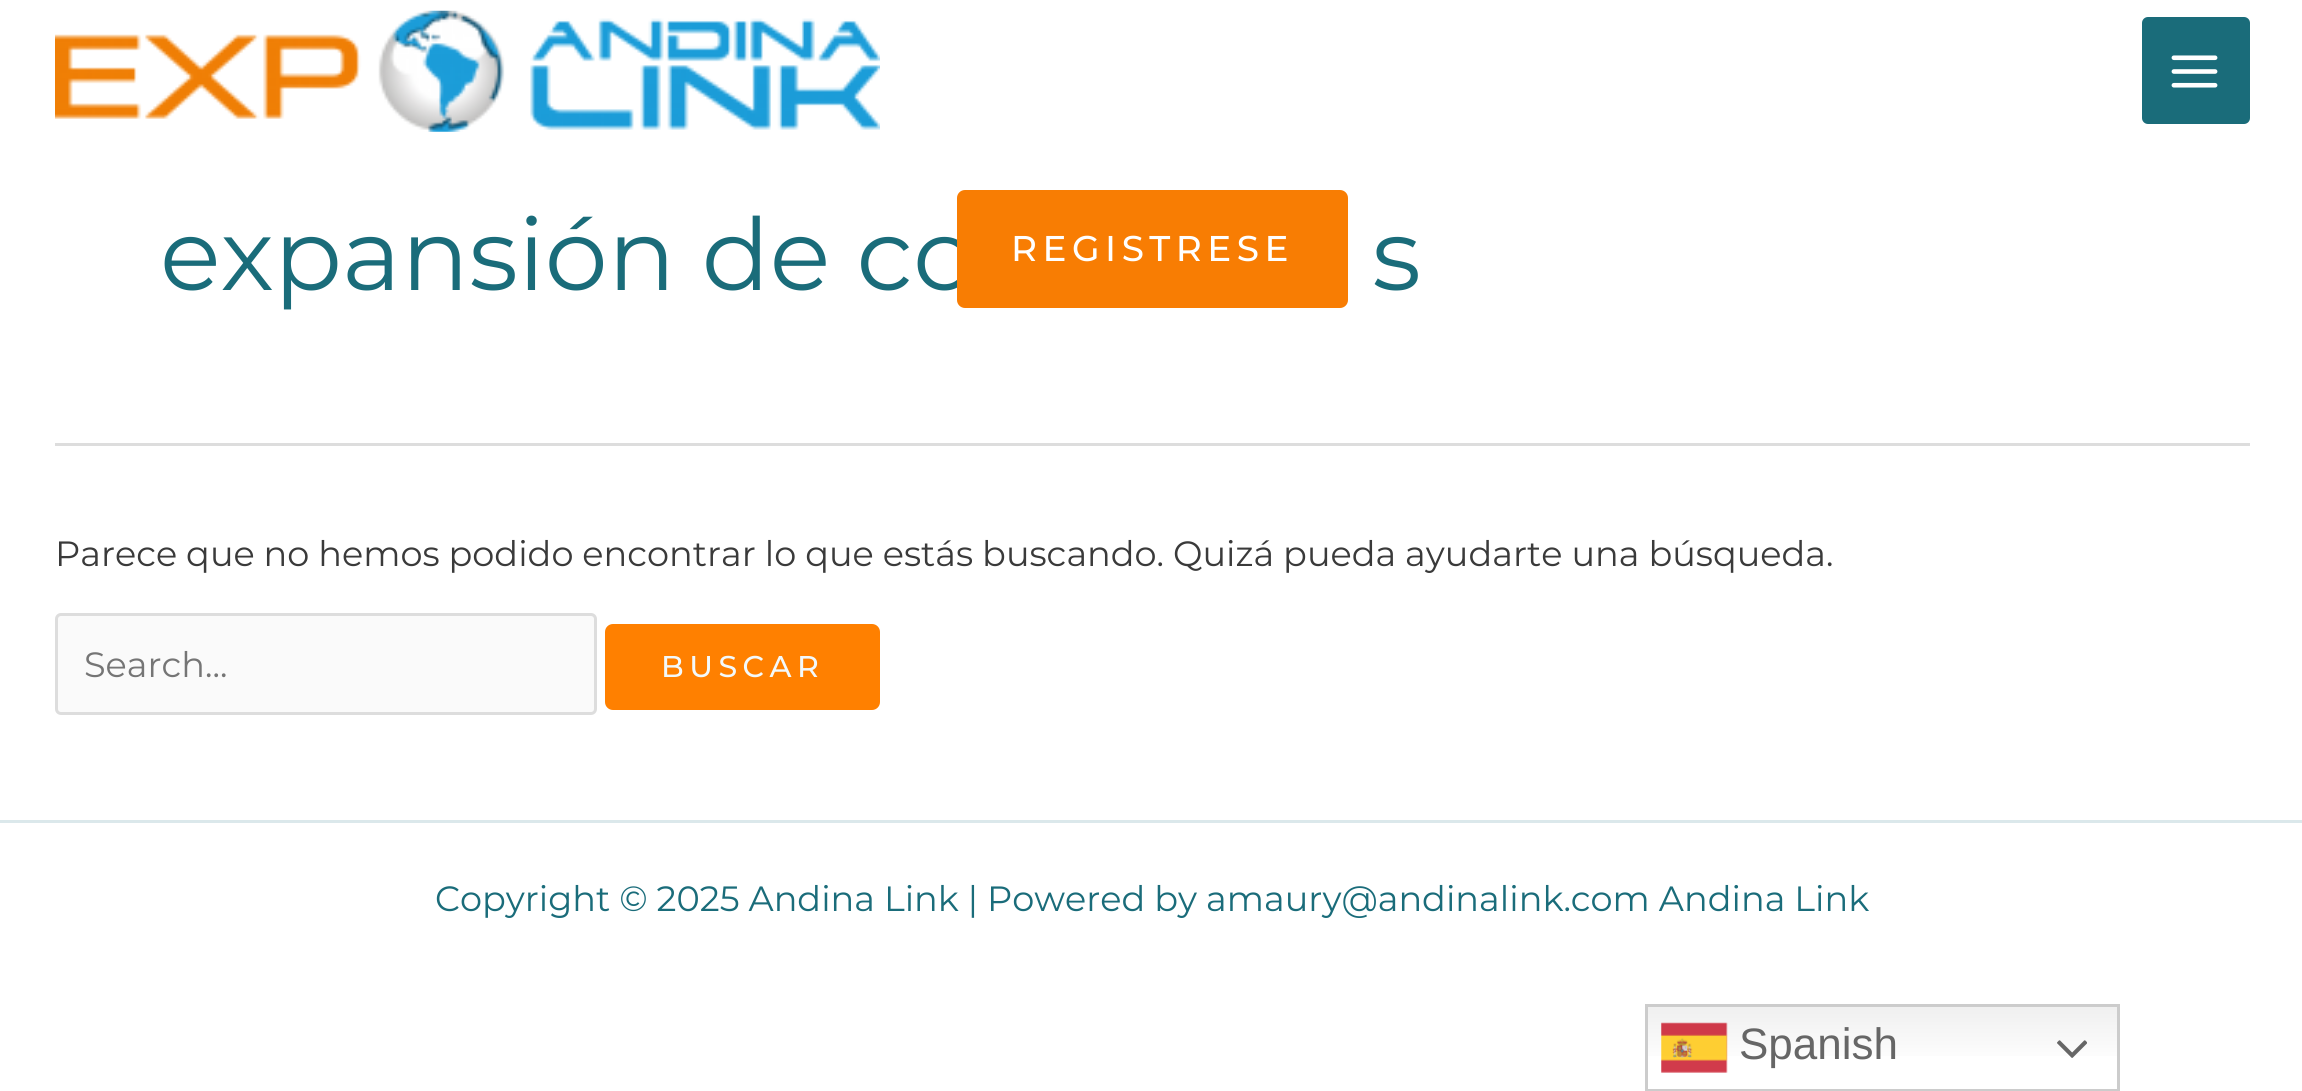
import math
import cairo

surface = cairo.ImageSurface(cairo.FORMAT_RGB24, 2302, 1091)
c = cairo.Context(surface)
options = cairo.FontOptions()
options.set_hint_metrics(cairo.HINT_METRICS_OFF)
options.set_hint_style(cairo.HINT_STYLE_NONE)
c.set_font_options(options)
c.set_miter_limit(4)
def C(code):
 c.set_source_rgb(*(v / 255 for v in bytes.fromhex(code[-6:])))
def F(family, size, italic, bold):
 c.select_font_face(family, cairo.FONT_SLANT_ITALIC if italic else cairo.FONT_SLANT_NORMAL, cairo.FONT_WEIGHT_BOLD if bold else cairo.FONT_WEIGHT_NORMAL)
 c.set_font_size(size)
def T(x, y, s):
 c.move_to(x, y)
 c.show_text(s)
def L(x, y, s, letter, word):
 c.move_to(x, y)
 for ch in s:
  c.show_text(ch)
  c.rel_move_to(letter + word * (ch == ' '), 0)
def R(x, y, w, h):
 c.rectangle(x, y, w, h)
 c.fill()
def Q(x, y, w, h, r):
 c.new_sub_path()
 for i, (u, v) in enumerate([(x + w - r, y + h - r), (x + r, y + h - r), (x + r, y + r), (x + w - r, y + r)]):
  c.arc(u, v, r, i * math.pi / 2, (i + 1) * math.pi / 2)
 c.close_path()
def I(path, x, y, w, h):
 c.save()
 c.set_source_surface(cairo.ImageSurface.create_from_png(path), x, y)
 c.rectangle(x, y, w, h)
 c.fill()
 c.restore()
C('ffffff')
c.paint()
C('dddddd')
R(55,443,2195,3)
F('Montserrat',100.25,0,0)
C('1a6c7a')
T(160,290,'expansión de co')
T(1372,290,'s')
F('Montserrat',35.1,0,0)
C('3a3a3a')
L(55,566,'Parece que no hemos podido encontrar lo que estás buscando. Quizá pueda ayudarte una búsqueda.',0,-.25)
C('fafafa')
Q(56.5,614.5,539,99,4.5)
c.fill_preserve()
C('dddddd')
c.set_line_width(3)
c.stroke()
C('757575')
T(84,677,'Search...')
C('ff8000')
Q(605,624,275,86,8)
c.fill()
F('Montserrat Medium',30,0,0)
C('f3f9fb')
L(661,677,'BUSCAR',5.5,0)
I('1.png',55,10,825,122)
C('1a6c7a')
Q(2142,17,108,107,6)
c.fill()
I('2.png',2171,55,47,33)
C('f87d03')
Q(957,190,391,118,8)
c.fill()
F('Montserrat Medium',35.75,0,0)
C('ffffff')
L(1011,261,'REGISTRESE',5.5,0)
C('dbe8eb')
R(0,820,2302,3)
F('Montserrat',35.1,0,0)
C('1a6c7a')
L(435,911,'Copyright © 2025 Andina Link | Powered by amaury@andinalink.com Andina Link',0,-.25)
gradient = cairo.LinearGradient(1882,1004,1882,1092)
gradient.add_color_stop_rgba(0,0.937,0.937,0.937,1)
gradient.add_color_stop_rgba(.7,1,1,1,1)
c.set_source(gradient)
R(1648,1007,469,49)
c.rectangle(1646.5,1005.5,472,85)
C('cccccc')
c.stroke()
I('3.png',1661,1022,67,51)
F('Liberation Sans',44,0,0)
C('666666')
T(1739,1059,'Spanish')
I('4.png',2057,1040,30,18)
surface.write_to_png('o.png')
